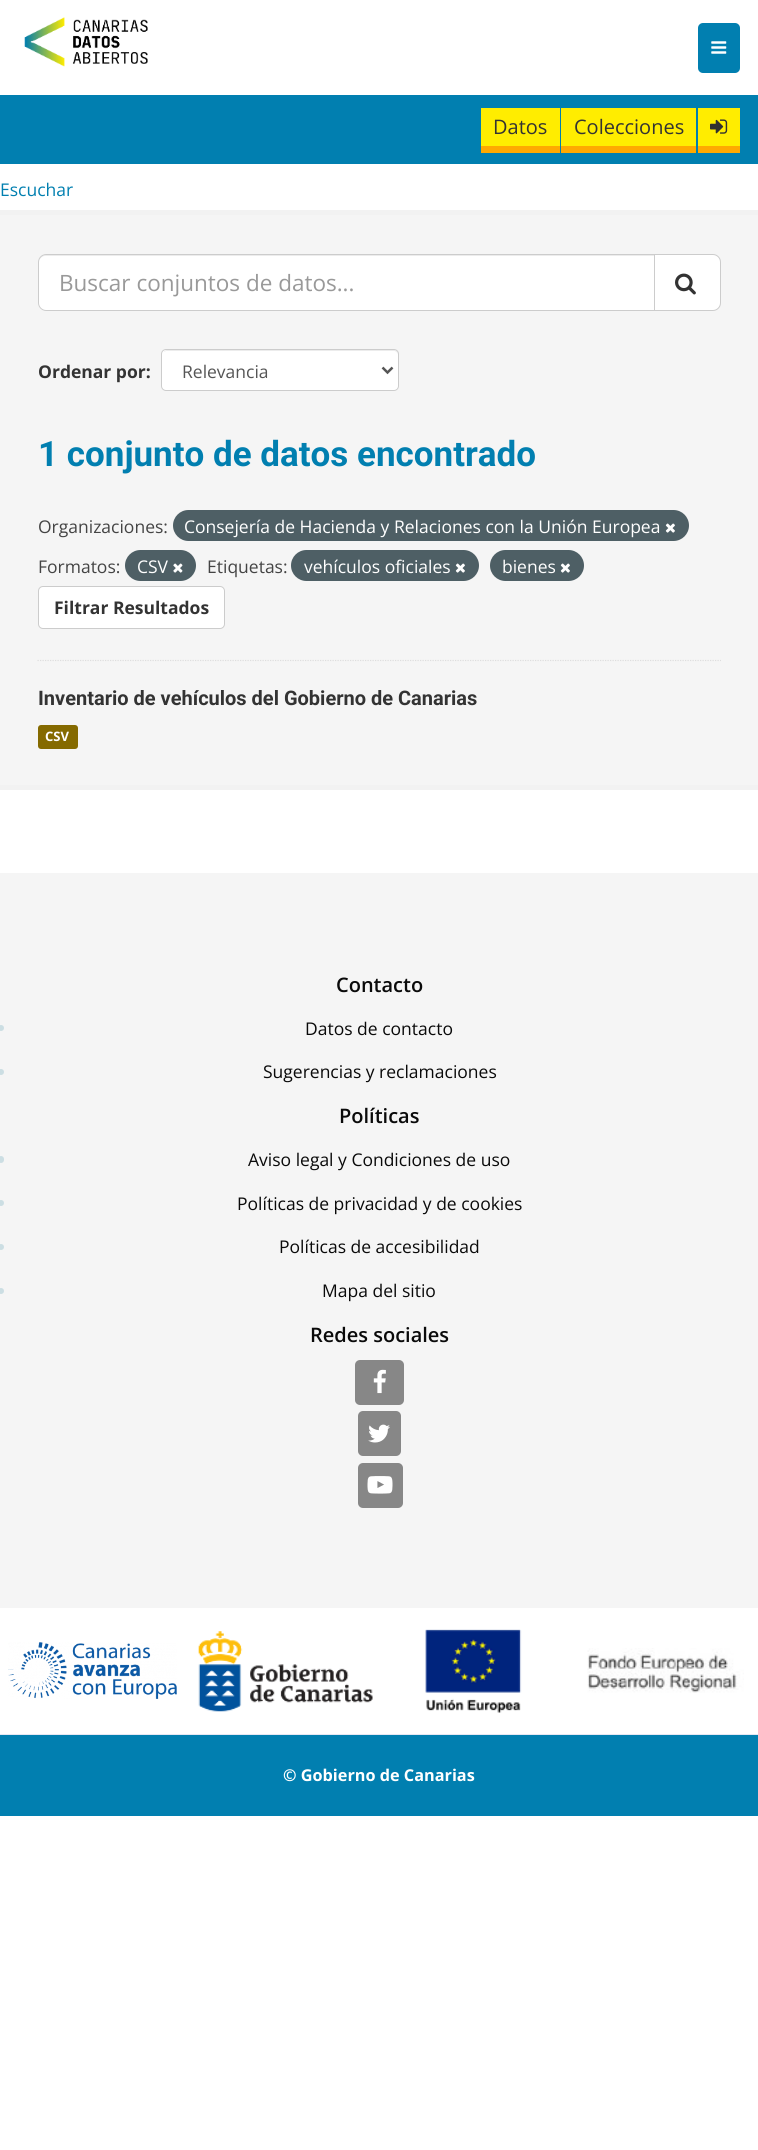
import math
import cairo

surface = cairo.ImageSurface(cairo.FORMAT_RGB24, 758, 2150)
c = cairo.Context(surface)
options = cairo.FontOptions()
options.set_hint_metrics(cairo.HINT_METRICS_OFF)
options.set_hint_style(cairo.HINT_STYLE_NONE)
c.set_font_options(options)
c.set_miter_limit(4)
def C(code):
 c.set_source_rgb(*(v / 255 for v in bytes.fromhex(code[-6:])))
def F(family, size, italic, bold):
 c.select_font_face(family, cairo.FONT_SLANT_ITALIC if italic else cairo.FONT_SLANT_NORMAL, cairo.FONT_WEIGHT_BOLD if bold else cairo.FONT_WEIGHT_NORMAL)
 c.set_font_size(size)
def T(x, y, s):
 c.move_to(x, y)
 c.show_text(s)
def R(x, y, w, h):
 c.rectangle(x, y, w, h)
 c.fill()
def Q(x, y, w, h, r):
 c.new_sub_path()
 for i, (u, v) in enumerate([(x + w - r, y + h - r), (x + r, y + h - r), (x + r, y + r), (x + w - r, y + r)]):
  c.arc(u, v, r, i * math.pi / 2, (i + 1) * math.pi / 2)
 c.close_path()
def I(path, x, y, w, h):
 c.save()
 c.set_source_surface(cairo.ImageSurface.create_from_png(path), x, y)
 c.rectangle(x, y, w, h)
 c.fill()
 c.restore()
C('ffffff')
c.paint()
I('1.png',24,17,124,50)
C('017fb0')
Q(698,23,42,50,5)
c.fill()
I('2.png',711,41,16,13)
R(0,95,758,69)
C('ffa900')
c.new_path()
c.move_to(481,114)
c.line_to(481,153)
c.line_to(560,153)
c.line_to(560,146)
c.line_to(481,146)
c.close_path()
c.fill()
C('ffed00')
R(481,108,79,38)
F('Open Sans',20,0,0)
C('333333')
T(493,134,'Datos')
C('ffa900')
c.new_path()
c.move_to(561,114)
c.line_to(561,153)
c.line_to(696,153)
c.line_to(696,146)
c.line_to(561,146)
c.close_path()
c.fill()
C('ffed00')
R(561,108,135,38)
C('333333')
T(574,134,'Colecciones')
C('ffa900')
R(698,146,42,7)
C('ffed00')
R(698,108,42,38)
I('3.png',710,119,18,15)
F('Open Sans',17.5,0,0)
C('017fb0')
T(0,196,'Escuchar')
c.rectangle(-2.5,212.5,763,575)
C('f2f2f2')
c.set_line_width(5)
c.stroke()
C('f5f5f5')
R(0,215,758,570)
c.new_path()
c.move_to(37.5,660.5)
c.line_to(721,660.5)
C('dddddd')
c.set_line_width(1.2)
c.set_dash([1.25,1.25])
c.stroke()
C('ffffff')
c.new_path()
c.move_to(46,254)
c.line_to(655,254)
c.line_to(655,311)
c.line_to(46,311)
c.curve_to(41.5,311,38,307.5,38,303)
c.line_to(38,262)
c.curve_to(38,257.5,41.5,254,46,254)
c.close_path()
c.fill()
C('ececec')
c.new_path()
c.move_to(45,256)
c.line_to(654,256)
c.line_to(654,255)
c.line_to(45,255)
c.curve_to(41,255,39,258,39,262)
c.curve_to(39,259,42,256,45,256)
c.close_path()
c.fill()
c.new_path()
c.move_to(46,254.5)
c.line_to(654.5,254.5)
c.line_to(654.5,310.5)
c.line_to(46,310.5)
c.curve_to(42,310.5,38.5,307,38.5,303)
c.line_to(38.5,262)
c.curve_to(38.5,258,42,254.5,46,254.5)
c.close_path()
C('cccccc')
c.set_line_width(1)
c.set_dash([])
c.stroke()
F('Open Sans',22.5,0,0)
C('999999')
T(59,291,'Buscar conjuntos de datos...')
C('ffffff')
c.new_path()
c.move_to(654.5,254.5)
c.line_to(713,254.5)
c.curve_to(717,254.5,720.5,258,720.5,262)
c.line_to(720.5,303)
c.curve_to(720.5,307,717,310.5,713,310.5)
c.line_to(654.5,310.5)
c.close_path()
c.fill_preserve()
C('cccccc')
c.stroke()
I('4.png',675,273,21,22)
F('Open Sans',17.5,0,1)
C('333333')
T(38,378,'Ordenar por:')
C('ffffff')
Q(161,349,238,42,5)
c.fill()
C('ececec')
c.new_path()
c.move_to(166,351)
c.line_to(394,351)
c.curve_to(396,351,398,353,398,355)
c.line_to(398,354)
c.curve_to(398,352,396,350,394,350)
c.line_to(167,350)
c.curve_to(166,350,164,351,164,352)
c.close_path()
c.fill()
Q(161.5,349.5,237,41,4.5)
C('cccccc')
c.stroke()
c.new_path()
c.move_to(382.5,367.5)
c.line_to(387.5,372.5)
c.line_to(392.5,367.5)
C('555555')
c.set_line_width(2.5)
c.stroke()
F('Open Sans',17.5,0,0)
T(182,378,'Relevancia')
F('Roboto',35,0,1)
C('017fb0')
T(38,466,'1 conjunto de datos encontrado')
F('Open Sans',17.5,0,0)
C('444444')
T(38,533,'Organizaciones:')
C('4e5f65')
Q(173,510,516,31,15.5)
c.fill()
C('ffffff')
T(184,533,'Consejería de Hacienda y Relaciones con la Unión Europea')
I('5.png',665,523,10,10)
C('444444')
T(38,573,'Formatos:')
C('4e5f65')
Q(125,550,71,31,15.5)
c.fill()
C('ffffff')
T(137,573,'CSV')
I('6.png',173,563,10,10)
C('444444')
T(207,573,'Etiquetas:')
C('4e5f65')
Q(291,550,188,31,15.5)
c.fill()
C('ffffff')
T(304,573,'vehículos oficiales')
I('5.png',455,563,10,10)
C('4e5f65')
Q(490,550,94,31,15.5)
c.fill()
C('ffffff')
T(502,573,'bienes')
I('5.png',560,563,10,10)
Q(38.5,586.5,186,42,4.5)
c.fill_preserve()
C('cccccc')
c.set_line_width(1)
c.stroke()
F('Open Sans',17.5,0,1)
C('333333')
T(54,614,'Filtrar Resultados')
F('Roboto',20,0,1)
T(38,705,'Inventario de vehículos del Gobierno de Canarias')
C('856a00')
Q(38,725,40,24,3)
c.fill()
F('Open Sans',13,0,1)
C('ffffff')
T(45,741,'CSV')
C('f5f5f5')
R(0,873,758,735)
F('Open Sans SemiBold',20,0,0)
C('0a0a0a')
T(336,992,'Contacto')
C('ccdee3')
c.new_path()
c.arc(1,1028,3,0,2 * math.pi)
c.fill()
F('Open Sans',17.5,0,0)
C('0a0a0a')
T(305,1035,'Datos de contacto')
C('ccdee3')
c.new_path()
c.arc(1,1072,3,0,2 * math.pi)
c.fill()
C('0a0a0a')
T(263,1078,'Sugerencias y reclamaciones')
F('Open Sans SemiBold',20,0,0)
T(339,1123,'Políticas')
C('ccdee3')
Q(-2,1156,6,7,3)
c.fill()
F('Open Sans',17.5,0,0)
C('0a0a0a')
T(248,1166,'Aviso legal y Condiciones de uso')
C('ccdee3')
c.new_path()
c.arc(1,1203,3,0,2 * math.pi)
c.fill()
C('0a0a0a')
T(237,1210,'Políticas de privacidad y de cookies')
C('ccdee3')
c.new_path()
c.arc(1,1247,3,0,2 * math.pi)
c.fill()
C('0a0a0a')
T(279,1253,'Políticas de accesibilidad')
C('ccdee3')
c.new_path()
c.arc(1,1291,3,0,2 * math.pi)
c.fill()
C('0a0a0a')
T(322,1297,'Mapa del sitio')
F('Open Sans SemiBold',20,0,0)
T(310,1342,'Redes sociales')
C('878787')
Q(355,1360,49,45,5)
c.fill()
I('7.png',373,1369,13,25)
Q(358,1411,43,45,5)
c.fill()
I('8.png',368,1424,22,19)
Q(358,1463,45,45,5)
c.fill()
I('9.png',367,1476,26,18)
I('10.png',8,1642,169,57)
I('11.png',198,1631,175,81)
I('12.png',425,1629,97,84)
I('13.png',587,1648,157,45)
C('017fb0')
R(0,1735,758,81)
C('e5e7f2')
R(0,1734,758,1)
F('Open Sans',16.25,0,1)
C('ffffff')
T(283,1781,'© Gobierno de Canarias')
surface.write_to_png('o.png')
